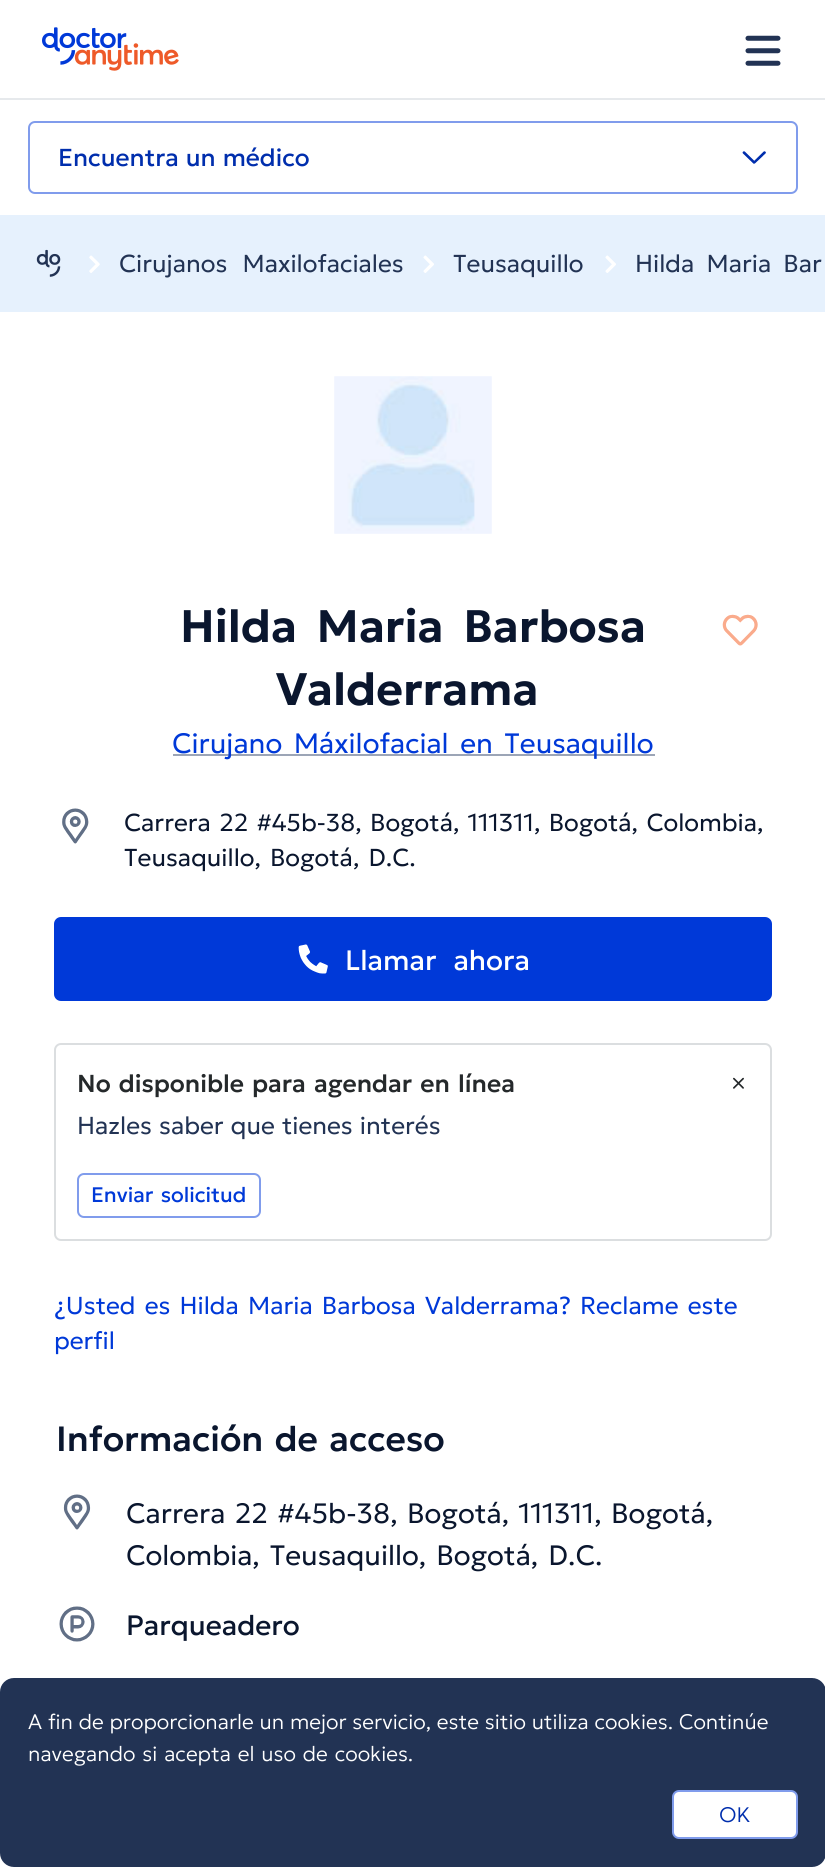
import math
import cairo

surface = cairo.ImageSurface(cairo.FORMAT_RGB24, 825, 1867)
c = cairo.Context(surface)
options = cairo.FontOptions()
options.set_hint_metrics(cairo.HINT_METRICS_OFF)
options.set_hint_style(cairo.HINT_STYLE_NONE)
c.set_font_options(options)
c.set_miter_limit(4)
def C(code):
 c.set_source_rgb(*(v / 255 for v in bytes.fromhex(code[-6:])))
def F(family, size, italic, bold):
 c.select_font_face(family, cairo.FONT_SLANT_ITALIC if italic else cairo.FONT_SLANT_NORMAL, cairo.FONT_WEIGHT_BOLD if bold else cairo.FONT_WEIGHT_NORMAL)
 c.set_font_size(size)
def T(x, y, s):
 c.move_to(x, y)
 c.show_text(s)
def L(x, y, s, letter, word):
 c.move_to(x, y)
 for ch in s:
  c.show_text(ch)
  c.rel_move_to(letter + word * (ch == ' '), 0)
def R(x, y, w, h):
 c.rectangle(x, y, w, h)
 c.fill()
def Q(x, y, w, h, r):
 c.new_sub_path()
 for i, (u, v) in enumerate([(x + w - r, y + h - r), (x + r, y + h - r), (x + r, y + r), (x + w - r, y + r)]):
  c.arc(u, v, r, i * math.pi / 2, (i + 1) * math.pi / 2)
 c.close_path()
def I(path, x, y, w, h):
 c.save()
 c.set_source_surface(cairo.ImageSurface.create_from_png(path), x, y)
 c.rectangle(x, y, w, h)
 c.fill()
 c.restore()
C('ffffff')
c.paint()
C('e6e9ec')
R(0,98,825,2)
I('1.png',42,27,137,44)
I('2.png',745,35,36,31)
Q(29,122,768,71,6)
C('809cec')
c.stroke()
F('Geologica',24.5,0,0)
C('002ead')
L(58,166,'Encuentra un médico',0,1)
I('3.png',742,151,24,13)
C('e6f1fd')
R(0,215,825,97)
I('4.png',36,249,25,28)
I('5.png',89,255,11,18)
F('Geologica Light',24.5,0,0)
C('223354')
L(119,272,'Cirujanos Maxilofaciales',0,9)
I('6.png',423,255,11,18)
T(453,272,'Teusaquillo')
I('6.png',605,255,11,18)
L(635,272,'Hilda Maria Bar',0,6)
I('7.png',334,376,158,158)
F('Geologica SemiBold',45.5,0,0)
C('0a162e')
L(180,642,'Hilda Maria Barbosa',0,9)
T(276,705,'Valderrama')
I('8.png',722,614,36,32)
C('9ca5b6')
R(173,754,482,2)
F('Geologica Light',28,0,0)
C('0039d8')
L(172,753,'Cirujano Máxilofacial en Teusaquillo',0,4.5)
I('9.png',62,808,27,36)
F('Geologica Light',24.5,0,0)
C('0a162e')
L(124,831,'Carrera 22 #45b-38, Bogotá, 111311, Bogotá, Colombia,',0,2.25)
L(124,866,'Teusaquillo, Bogotá, D.C.',0,3)
C('0039d8')
Q(55,918,716,82,6)
c.fill_preserve()
c.stroke()
I('10.png',298,944,30,30)
F('Geologica',28,0,0)
C('ffffff')
L(345,970,'Llamar ahora',0,10)
Q(55,1044,716,196,6)
C('dbdee0')
c.stroke()
F('Geologica Medium',24.5,0,0)
C('25292b')
L(77,1092,'No disponible para agendar en línea',0,2.25)
F('Geologica Light',24.5,0,0)
C('223354')
L(77,1134,'Hazles saber que tienes interés',0,1)
I('11.png',733,1077,11,12)
Q(78,1174,182,43,6)
C('809cec')
c.stroke()
F('Geologica',21,0,0)
C('0039d8')
L(91,1202,'Enviar solicitud',0,2)
F('Geologica Light',24.5,0,0)
L(54,1314,'¿Usted es Hilda Maria Barbosa Valderrama? Reclame este',0,3)
T(54,1349,'perfil')
F('Geologica Medium',35,0,0)
C('0a162e')
L(56,1451,'Información de acceso',0,3)
I('12.png',63,1494,28,36)
F('Geologica Light',28,0,0)
L(126,1523,'Carrera 22 #45b-38, Bogotá, 111311, Bogotá,',0,2.5)
L(126,1565,'Colombia, Teusaquillo, Bogotá, D.C.',0,3)
I('13.png',59,1606,36,36)
F('Geologica',28,0,0)
T(126,1635,'Parqueadero')
C('223354')
Q(0,1678,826,189,14)
c.fill()
F('Geologica ExtraLight',21,0,0)
C('ffffff')
L(28,1729,'A fin de proporcionarle un mejor servicio, este sitio utiliza cookies. Continúe',0,.4)
L(28,1761,'navegando si acepta el uso de cookies.',0,1.5)
Q(673,1791,124,47,6)
c.fill_preserve()
C('809cec')
c.stroke()
C('002ead')
T(719,1822,'OK')
surface.write_to_png('o.png')
